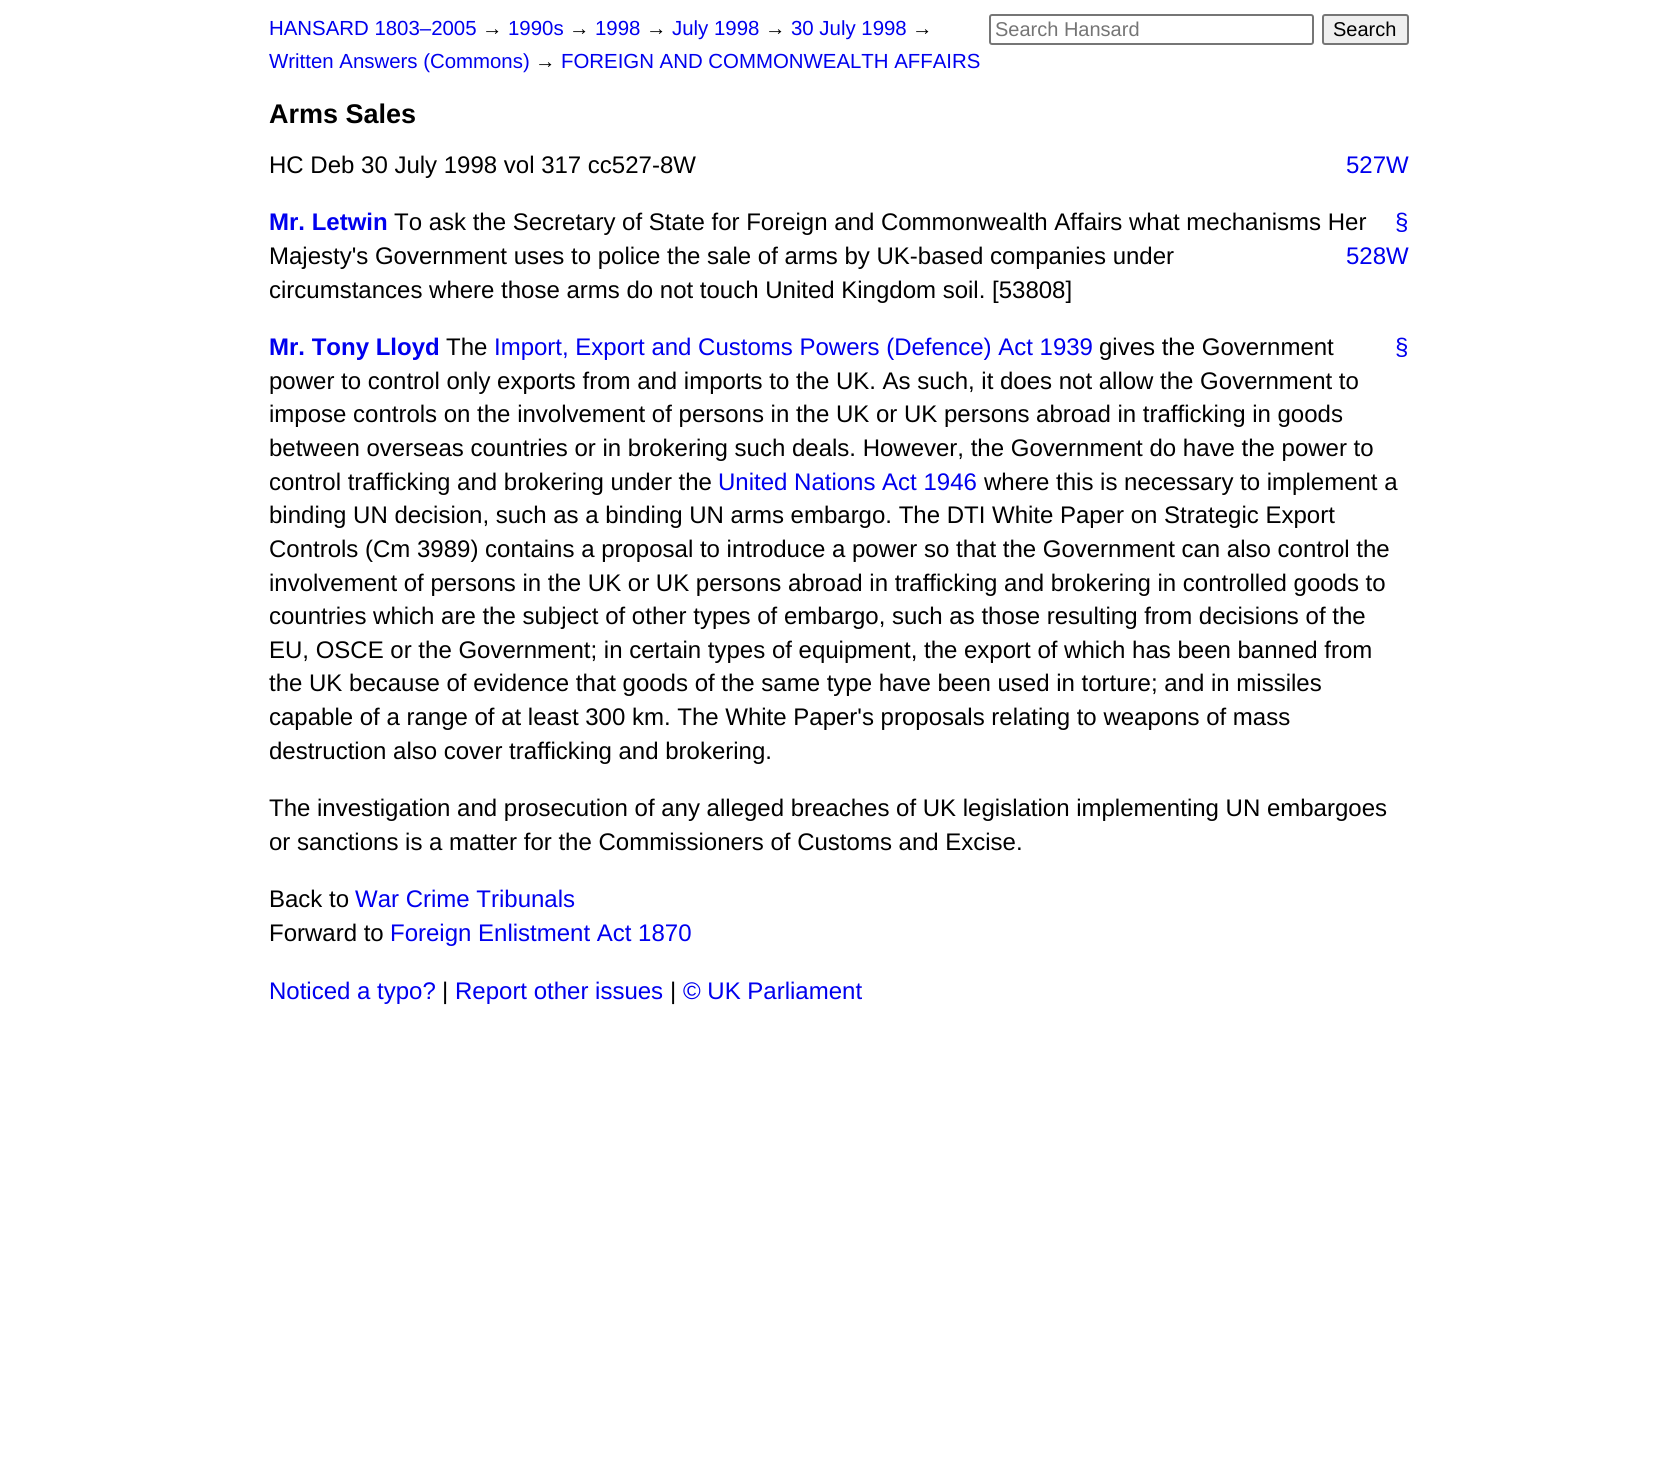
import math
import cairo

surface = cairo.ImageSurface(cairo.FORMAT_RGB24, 1677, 1479)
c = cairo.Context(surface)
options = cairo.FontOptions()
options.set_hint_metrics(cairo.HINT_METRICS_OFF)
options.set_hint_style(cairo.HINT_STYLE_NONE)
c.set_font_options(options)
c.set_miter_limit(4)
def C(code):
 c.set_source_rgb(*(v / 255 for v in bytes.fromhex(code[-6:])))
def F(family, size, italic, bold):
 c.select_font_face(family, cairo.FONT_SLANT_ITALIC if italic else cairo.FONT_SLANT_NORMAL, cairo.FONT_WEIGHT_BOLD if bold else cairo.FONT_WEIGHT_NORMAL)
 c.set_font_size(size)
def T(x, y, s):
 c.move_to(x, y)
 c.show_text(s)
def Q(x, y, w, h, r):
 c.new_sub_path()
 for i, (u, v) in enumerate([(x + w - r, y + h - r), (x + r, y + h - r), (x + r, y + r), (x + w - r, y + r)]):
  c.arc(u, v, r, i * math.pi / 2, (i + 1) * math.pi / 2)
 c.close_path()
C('ffffff')
c.paint()
F('Liberation Sans',20.4,0,0)
C('0000ee')
T(269,35,'HANSARD 1803–2005')
C('000000')
T(482,35,'→')
C('0000ee')
T(508,35,'1990s')
C('000000')
T(569,35,'→')
C('0000ee')
T(595,35,'1998')
C('000000')
T(646,35,'→')
C('0000ee')
T(672,35,'July 1998')
C('000000')
T(765,35,'→')
C('0000ee')
T(791,35,'30 July 1998')
C('000000')
T(912,35,'→')
C('0000ee')
T(269,68,'Written Answers (Commons)')
C('000000')
T(535,68,'→')
C('0000ee')
T(561,68,'FOREIGN AND COMMONWEALTH AFFAIRS')
Q(990,15,323,29,2)
C('767676')
c.stroke()
F('Liberation Sans',20,0,0)
C('757575')
T(995,36,'Search Hansard')
C('efefef')
Q(1323,15,85,29,2)
c.fill_preserve()
C('767676')
c.stroke()
C('000000')
T(1333,36,'Search')
F('Liberation Sans',27,0,1)
T(269,123,'Arms Sales')
F('Liberation Sans',24,0,0)
T(269,173,'HC Deb 30 July 1998 vol 317 cc527-8W')
C('0000ee')
T(1346,173,'527W')
C('000000')
T(394,230,'To ask the Secretary of State for Foreign and Commonwealth Affairs what mechanisms Her')
T(269,264,'Majesty\'s Government uses to police the sale of arms by UK-based companies under')
C('0000ee')
T(1346,264,'528W')
C('000000')
T(269,298,'circumstances where those arms do not touch United Kingdom soil. [53808]')
F('Liberation Sans',24,0,1)
C('0000ee')
T(269,230,'Mr. Letwin')
F('Liberation Sans',24,0,0)
T(1395,230,'§')
F('Liberation Sans',24,0,1)
T(269,355,'Mr. Tony Lloyd')
F('Liberation Sans',24,0,0)
C('000000')
T(446,355,'The')
C('0000ee')
T(494,355,'Import, Export and Customs Powers (Defence) Act 1939')
C('000000')
T(1099,355,'gives the Government')
C('0000ee')
T(1395,355,'§')
C('000000')
T(269,389,'power to control only exports from and imports to the UK. As such, it does not allow the Government to')
T(269,422,'impose controls on the involvement of persons in the UK or UK persons abroad in trafficking in goods')
T(269,456,'between overseas countries or in brokering such deals. However, the Government do have the power to')
T(269,490,'control trafficking and brokering under the')
C('0000ee')
T(718,490,'United Nations Act 1946')
C('000000')
T(984,490,'where this is necessary to implement a')
T(269,523,'binding UN decision, such as a binding UN arms embargo. The DTI White Paper on Strategic Export')
T(269,557,'Controls (Cm 3989) contains a proposal to introduce a power so that the Government can also control the')
T(269,591,'involvement of persons in the UK or UK persons abroad in trafficking and brokering in controlled goods to')
T(269,624,'countries which are the subject of other types of embargo, such as those resulting from decisions of the')
T(269,658,'EU, OSCE or the Government; in certain types of equipment, the export of which has been banned from')
T(269,691,'the UK because of evidence that goods of the same type have been used in torture; and in missiles')
T(269,725,'capable of a range of at least 300 km. The White Paper\'s proposals relating to weapons of mass')
T(269,759,'destruction also cover trafficking and brokering.')
T(269,816,'The investigation and prosecution of any alleged breaches of UK legislation implementing UN embargoes')
T(269,850,'or sanctions is a matter for the Commissioners of Customs and Excise.')
T(269,907,'Back to')
C('0000ee')
T(355,907,'War Crime Tribunals')
C('000000')
T(269,941,'Forward to')
C('0000ee')
T(390,941,'Foreign Enlistment Act 1870')
T(269,999,'Noticed a typo?')
C('000000')
T(442,999,'|')
C('0000ee')
T(455,999,'Report other issues')
C('000000')
T(670,999,'|')
C('0000ee')
T(683,999,'© UK Parliament')
surface.write_to_png('o.png')
